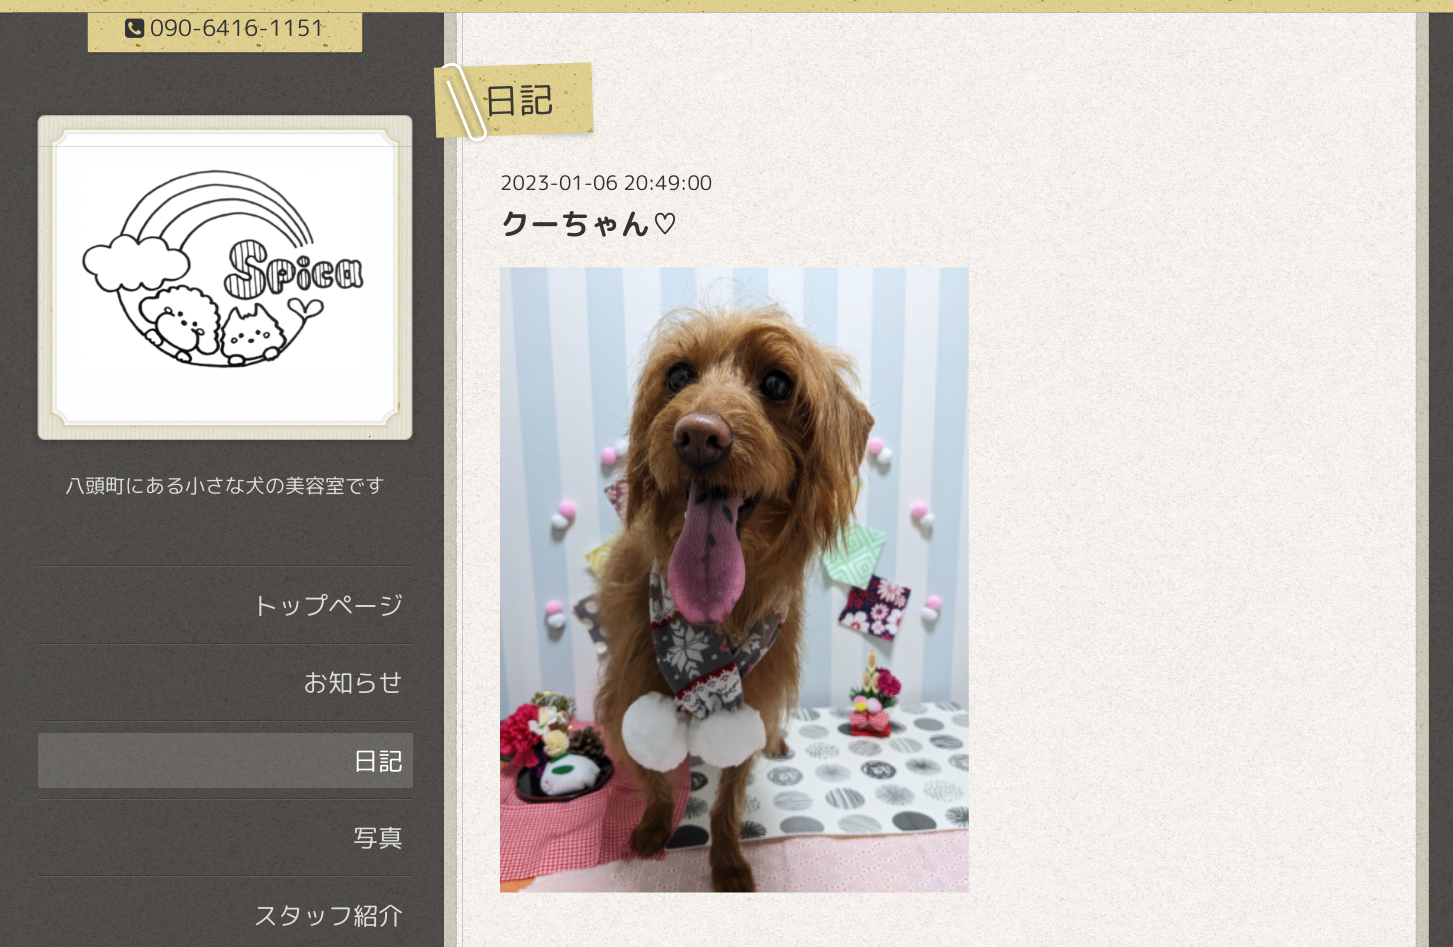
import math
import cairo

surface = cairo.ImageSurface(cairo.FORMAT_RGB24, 1453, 947)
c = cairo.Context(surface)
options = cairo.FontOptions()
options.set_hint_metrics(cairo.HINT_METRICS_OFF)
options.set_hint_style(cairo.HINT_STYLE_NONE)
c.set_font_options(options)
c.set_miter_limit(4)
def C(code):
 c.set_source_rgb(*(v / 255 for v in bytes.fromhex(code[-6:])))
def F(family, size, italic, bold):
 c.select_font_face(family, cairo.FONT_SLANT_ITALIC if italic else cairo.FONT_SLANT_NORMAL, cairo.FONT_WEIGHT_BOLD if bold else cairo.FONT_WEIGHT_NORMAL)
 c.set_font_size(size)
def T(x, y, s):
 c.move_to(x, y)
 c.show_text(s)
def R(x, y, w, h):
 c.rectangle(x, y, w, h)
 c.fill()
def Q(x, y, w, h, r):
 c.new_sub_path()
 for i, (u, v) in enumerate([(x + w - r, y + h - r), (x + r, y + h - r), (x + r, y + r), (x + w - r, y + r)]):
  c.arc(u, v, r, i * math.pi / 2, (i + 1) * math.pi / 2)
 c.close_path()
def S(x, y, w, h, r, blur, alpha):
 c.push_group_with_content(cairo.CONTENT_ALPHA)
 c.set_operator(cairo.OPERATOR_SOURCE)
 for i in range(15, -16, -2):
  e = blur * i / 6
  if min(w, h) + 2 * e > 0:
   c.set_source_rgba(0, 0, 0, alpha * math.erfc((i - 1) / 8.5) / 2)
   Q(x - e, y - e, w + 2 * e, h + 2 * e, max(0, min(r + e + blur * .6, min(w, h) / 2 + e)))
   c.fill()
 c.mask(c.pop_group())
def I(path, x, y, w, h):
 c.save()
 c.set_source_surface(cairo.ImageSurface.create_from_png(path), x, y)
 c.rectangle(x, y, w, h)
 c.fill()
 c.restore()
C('ffffff')
c.paint()
I('1.png',0,12,1453,935)
C('121212')
S(0,1,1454,13,0,.5,.2)
I('2.png',0,0,1453,13)
C('514f4c')
R(437,13,1,934)
I('11.png',12,12,426,935)
C('121212')
S(88,14,275,40,2.5,.5,.2)
I('3.png',87,12,276,41)
I('4.png',125,18,20,20)
F('Rounded Mplus 1c',22.5,0,0)
C('333333')
T(150,36,'090-6416-1151')
I('5.png',462,12,948,935)
I('6.png',442,12,21,935)
C('363636')
S(435,66,158,70,0,1.5,.1)
C('000000')
S(441,123,47,12,0,5,.1)
S(541,120,47,13,0,5,.2)
I('7.png',433,62,161,76)
F('Rounded Mplus 1c',35,0,0)
C('3b382f')
c.save()
c.translate(484,114)
c.rotate(-2 * math.pi / 180)
T(0,0,'日記')
c.restore()
I('8.png',440,62,53,83)
I('9.png',1410,12,20,935)
F('Rounded Mplus 1c',20,0,0)
C('333333')
T(500,190,'2023-01-06 20:49:00')
F('Rounded Mplus 1c Bold',30,0,1)
T(500,235,'クーちゃん♡')
I('10.png',500,267,469,626)
c.save()
c.set_fill_rule(cairo.FILL_RULE_EVEN_ODD)
c.new_path()
c.move_to(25,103)
c.line_to(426,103)
c.line_to(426,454)
c.line_to(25,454)
c.close_path()
c.move_to(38,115)
c.line_to(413,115)
c.line_to(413,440)
c.line_to(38,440)
c.close_path()
c.clip()
C('111111')
S(38,116,375,325,0,4,.3)
c.restore()
I('12.png',37,115,376,32)
I('13.png',37,146,376,294)
I('14.png',81,169,284,200)
F('Rounded Mplus 1c',20,0,0)
C('dcdbda')
T(65,493,'八頭町にある小さな犬の美容室です')
C('514f4c')
R(412,565,1,382)
I('15.png',37,565,376,382)
c.set_source_rgba(0.071,0.071,0.071,0.25)
R(38,565,375,1)
c.set_source_rgba(1,1,1,0.1)
R(38,566,375,1)
c.set_source_rgba(0.071,0.071,0.071,0.25)
R(38,643,375,1)
F('Rounded Mplus 1c',25,0,0)
C('dcdbda')
T(253,615,'トップページ')
c.set_source_rgba(1,1,1,0.1)
R(38,644,375,1)
c.set_source_rgba(0.071,0.071,0.071,0.25)
R(38,720,375,1)
C('dcdbda')
T(303,692,'お知らせ')
c.set_source_rgba(1,1,1,0.1)
R(38,721,375,1)
c.set_source_rgba(0.071,0.071,0.071,0.25)
R(38,798,375,1)
c.set_source_rgba(1,1,1,0.15)
Q(38,733,375,55,2.5)
c.fill()
C('ffffff')
T(353,770,'日記')
c.set_source_rgba(1,1,1,0.1)
R(38,799,375,1)
c.set_source_rgba(0.071,0.071,0.071,0.25)
R(38,875,375,1)
C('dcdbda')
T(353,847,'写真')
c.set_source_rgba(1,1,1,0.1)
R(38,876,375,1)
C('dcdbda')
T(253,925,'スタッフ紹介')
surface.write_to_png('o.png')
